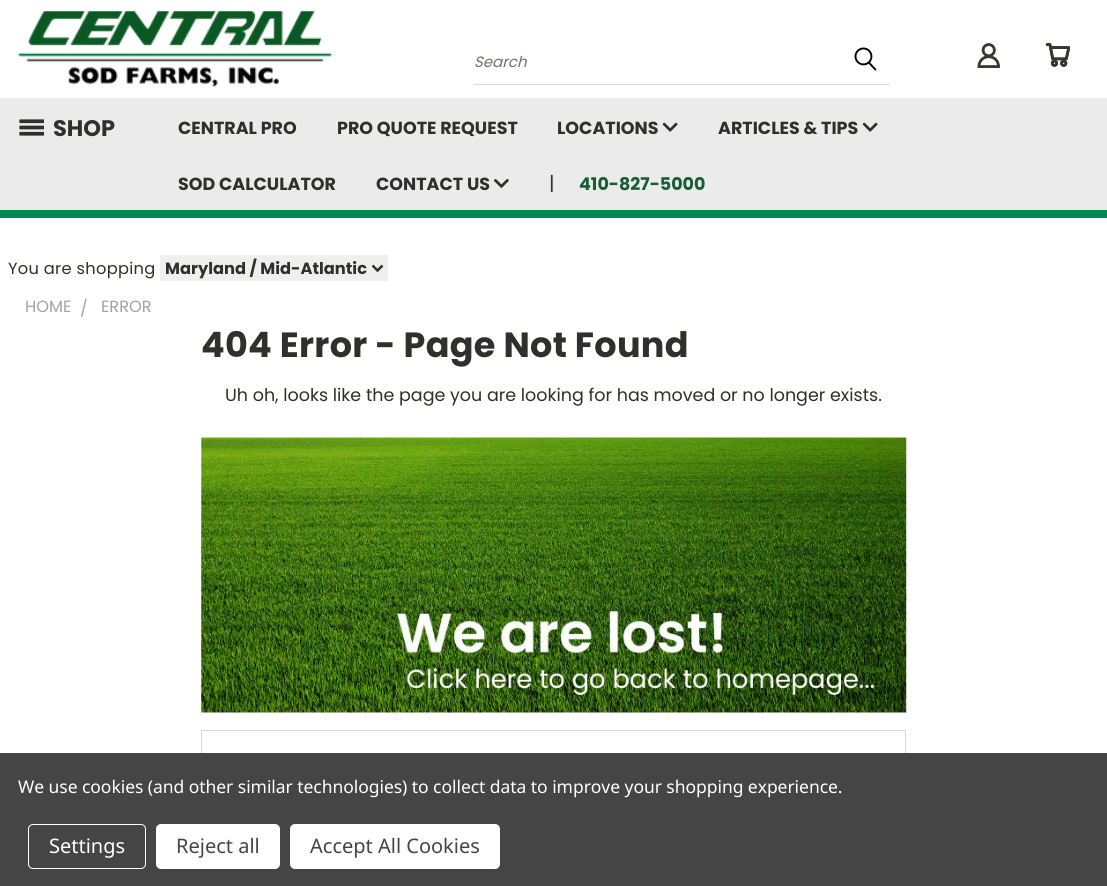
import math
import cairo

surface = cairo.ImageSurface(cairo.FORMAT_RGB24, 1107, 886)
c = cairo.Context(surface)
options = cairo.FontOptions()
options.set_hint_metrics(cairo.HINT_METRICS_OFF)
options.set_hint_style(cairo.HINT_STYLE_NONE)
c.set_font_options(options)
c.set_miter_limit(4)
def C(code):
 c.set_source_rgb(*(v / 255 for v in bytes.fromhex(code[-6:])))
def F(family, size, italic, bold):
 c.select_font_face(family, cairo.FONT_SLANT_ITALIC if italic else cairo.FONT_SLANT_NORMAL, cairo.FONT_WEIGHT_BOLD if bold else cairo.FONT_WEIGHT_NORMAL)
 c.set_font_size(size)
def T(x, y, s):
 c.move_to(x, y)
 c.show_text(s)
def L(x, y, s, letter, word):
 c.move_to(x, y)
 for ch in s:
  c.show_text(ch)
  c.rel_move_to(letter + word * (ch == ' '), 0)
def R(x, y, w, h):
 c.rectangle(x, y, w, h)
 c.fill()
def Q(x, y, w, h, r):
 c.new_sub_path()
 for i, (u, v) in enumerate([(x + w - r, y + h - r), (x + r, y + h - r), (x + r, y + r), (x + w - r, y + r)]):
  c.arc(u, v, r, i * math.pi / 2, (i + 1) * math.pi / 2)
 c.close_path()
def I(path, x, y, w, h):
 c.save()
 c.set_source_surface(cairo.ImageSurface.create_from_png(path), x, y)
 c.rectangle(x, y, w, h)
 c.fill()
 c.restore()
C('ffffff')
c.paint()
I('1.png',18,11,314,76)
C('d7d7d7')
R(474,84,416,1)
F('Poppins',15,1,0)
C('70706e')
T(474,67,'Search')
I('2.png',854,47,23,24)
I('3.png',977,43,23,25)
I('4.png',1045,43,25,24)
C('ebebeb')
R(0,98,1107,112)
C('008952')
R(0,210,1107,8)
I('5.png',19,119,25,17)
F('Poppins',22.5,0,1)
C('2f2f2b')
T(53,136,'SHOP')
F('Poppins',17.5,0,1)
T(178,134,'CENTRAL PRO')
T(337,134,'PRO QUOTE REQUEST')
T(557,134,'LOCATIONS')
I('6.png',662,122,16,10)
T(718,134,'ARTICLES & TIPS')
I('6.png',862,122,16,10)
T(178,190,'SOD CALCULATOR')
T(376,190,'CONTACT US')
I('7.png',494,179,15,9)
F('Poppins',19,0,0)
T(549,190,'|')
F('Poppins',17.5,0,1)
C('185d34')
T(579,190,'410-827-5000')
F('Poppins',16.25,0,0)
C('2f2f2b')
L(8,274,'You are shopping',.3,0)
C('efefef')
R(160,255,228,26)
c.new_path()
c.move_to(372.5,265.5)
c.line_to(377.5,270.5)
c.line_to(382.5,265.5)
C('2f2f2b')
c.set_line_width(2.5)
c.stroke()
F('Poppins',16.25,0,1)
T(165,274,'Maryland / Mid-Atlantic')
F('Poppins',16.25,0,0)
C('a2a2a2')
T(25,312,'HOME')
T(80,314,'/')
T(101,312,'ERROR')
F('Poppins',35,0,1)
C('2f2f2b')
L(201,357,'404 Error - Page Not Found',.3,0)
F('Poppins',17.5,0,0)
T(225,401,'Uh oh, looks like the page you are looking for has moved or no longer exists.')
I('8.png',201,437,706,276)
c.rectangle(201.5,730.5,704,52)
C('d7d7d7')
c.set_line_width(1)
c.stroke()
C('454545')
R(0,753,1107,133)
F('Noto Sans',17.5,0,0)
C('ffffff')
L(18,793,'We use cookies (and other similar technologies) to collect data to improve your shopping experience.',-.05,0)
Q(28.5,824.5,117,44,4.5)
c.stroke()
F('Noto Sans',20,0,0)
T(49,853,'Settings')
Q(156,824,124,45,5)
c.fill()
C('454545')
T(176,853,'Reject all')
C('ffffff')
Q(290,824,210,45,5)
c.fill()
C('454545')
T(310,853,'Accept All Cookies')
surface.write_to_png('o.png')
